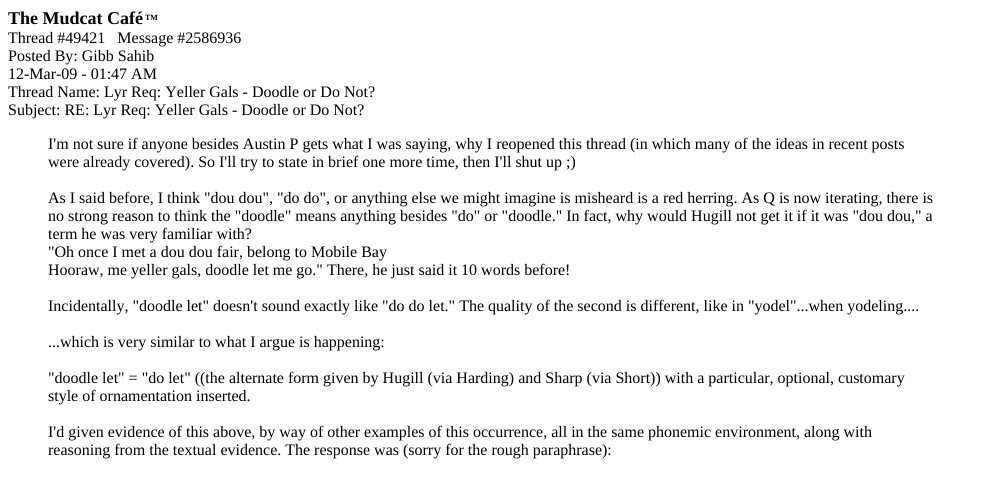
import math
import cairo

surface = cairo.ImageSurface(cairo.FORMAT_RGB24, 983, 483)
c = cairo.Context(surface)
options = cairo.FontOptions()
options.set_hint_metrics(cairo.HINT_METRICS_OFF)
options.set_hint_style(cairo.HINT_STYLE_NONE)
c.set_font_options(options)
c.set_miter_limit(4)
def C(code):
 c.set_source_rgb(*(v / 255 for v in bytes.fromhex(code[-6:])))
def F(family, size, italic, bold):
 c.select_font_face(family, cairo.FONT_SLANT_ITALIC if italic else cairo.FONT_SLANT_NORMAL, cairo.FONT_WEIGHT_BOLD if bold else cairo.FONT_WEIGHT_NORMAL)
 c.set_font_size(size)
def T(x, y, s):
 c.move_to(x, y)
 c.show_text(s)
C('ffffff')
c.paint()
F('Liberation Serif',18,0,1)
C('000000')
T(8,24,'The Mudcat Café')
F('Liberation Serif',8,0,1)
T(145,20,'TM')
F('Liberation Serif',16,0,0)
T(8,43,'Thread #49421   Message #2586936')
T(8,61,'Posted By: Gibb Sahib')
T(8,79,'12-Mar-09 - 01:47 AM')
T(8,97,'Thread Name: Lyr Req: Yeller Gals - Doodle or Do Not?')
T(8,115,'Subject: RE: Lyr Req: Yeller Gals - Doodle or Do Not?')
T(48,149,'I\'m not sure if anyone besides Austin P gets what I was saying, why I reopened this thread (in which many of the ideas in recent posts')
T(48,167,'were already covered). So I\'ll try to state in brief one more time, then I\'ll shut up ;)')
T(48,203,'As I said before, I think "dou dou", "do do", or anything else we might imagine is misheard is a red herring. As Q is now iterating, there is')
T(48,221,'no strong reason to think the "doodle" means anything besides "do" or "doodle." In fact, why would Hugill not get it if it was "dou dou," a')
T(48,239,'term he was very familiar with?')
T(48,257,'"Oh once I met a dou dou fair, belong to Mobile Bay')
T(48,275,'Hooraw, me yeller gals, doodle let me go." There, he just said it 10 words before!')
T(48,311,'Incidentally, "doodle let" doesn\'t sound exactly like "do do let." The quality of the second is different, like in "yodel"...when yodeling....')
T(48,347,'...which is very similar to what I argue is happening:')
T(48,383,'"doodle let" = "do let" ((the alternate form given by Hugill (via Harding) and Sharp (via Short)) with a particular, optional, customary')
T(48,401,'style of ornamentation inserted.')
T(48,437,'I\'d given evidence of this above, by way of other examples of this occurrence, all in the same phonemic environment, along with')
T(48,455,'reasoning from the textual evidence. The response was (sorry for the rough paraphrase):')
surface.write_to_png('o.png')
